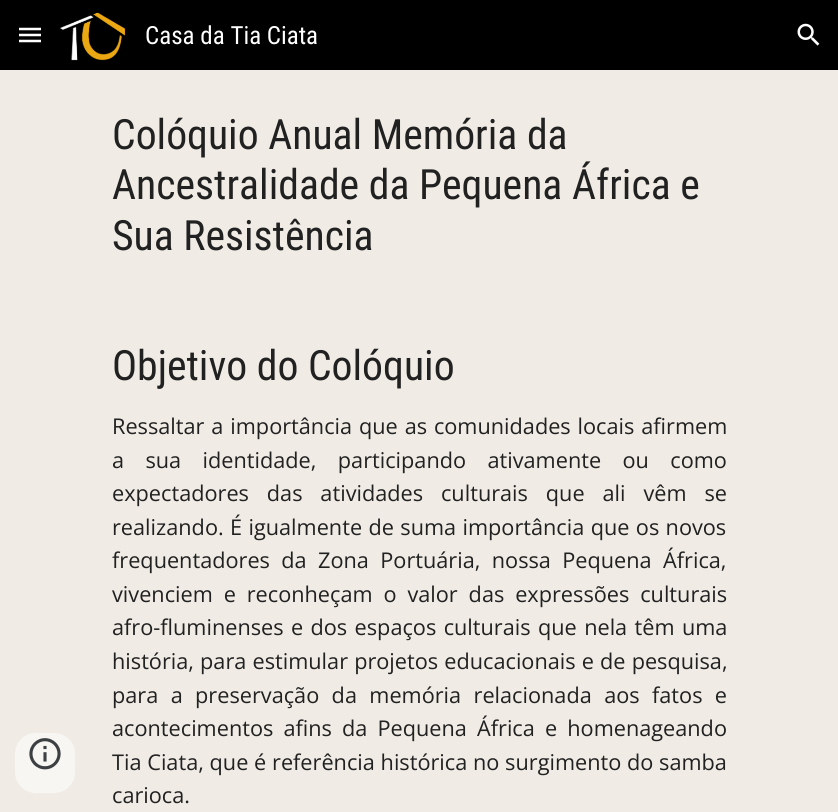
import math
import cairo

surface = cairo.ImageSurface(cairo.FORMAT_RGB24, 838, 812)
c = cairo.Context(surface)
options = cairo.FontOptions()
options.set_hint_metrics(cairo.HINT_METRICS_OFF)
options.set_hint_style(cairo.HINT_STYLE_NONE)
c.set_font_options(options)
c.set_miter_limit(4)
def C(code):
 c.set_source_rgb(*(v / 255 for v in bytes.fromhex(code[-6:])))
def F(family, size, italic, bold):
 c.select_font_face(family, cairo.FONT_SLANT_ITALIC if italic else cairo.FONT_SLANT_NORMAL, cairo.FONT_WEIGHT_BOLD if bold else cairo.FONT_WEIGHT_NORMAL)
 c.set_font_size(size)
def T(x, y, s):
 c.move_to(x, y)
 c.show_text(s)
def L(x, y, s, letter, word):
 c.move_to(x, y)
 for ch in s:
  c.show_text(ch)
  c.rel_move_to(letter + word * (ch == ' '), 0)
def R(x, y, w, h):
 c.rectangle(x, y, w, h)
 c.fill()
def Q(x, y, w, h, r):
 c.new_sub_path()
 for i, (u, v) in enumerate([(x + w - r, y + h - r), (x + r, y + h - r), (x + r, y + r), (x + w - r, y + r)]):
  c.arc(u, v, r, i * math.pi / 2, (i + 1) * math.pi / 2)
 c.close_path()
def I(path, x, y, w, h):
 c.save()
 c.set_source_surface(cairo.ImageSurface.create_from_png(path), x, y)
 c.rectangle(x, y, w, h)
 c.fill()
 c.restore()
C('f0ece5')
c.paint()
C('000000')
R(0,0,838,70)
c.new_path()
c.move_to(19,29)
c.line_to(41,29)
c.move_to(19,35)
c.line_to(41,35)
c.move_to(19,41)
c.line_to(41,41)
C('ffffff')
c.set_line_width(2.5)
c.stroke()
I('1.png',60,12,66,49)
F('Roboto Condensed',25,0,0)
T(145,44,'Casa da Tia Ciata')
I('2.png',797,23,23,23)
C('f8f6f2')
Q(15,733,60,60,21)
c.fill()
I('3.png',29,738,32,32)
F('Roboto Condensed',41.7,0,0)
C('212121')
T(112,149,'Colóquio Anual Memória da')
T(112,199,'Ancestralidade da Pequena África e')
T(112,250,'Sua Resistência')
T(112,380,'Objetivo do Colóquio')
F('Open Sans',21.7,0,0)
L(112,434,'Ressaltar a importância que as comunidades locais afirmem',0,1.25)
L(112,468,'a sua identidade, participando ativamente ou como',0,15.75)
L(112,501,'expectadores das atividades culturais que ali vêm se',0,12.25)
L(112,535,'realizando. É igualmente de suma importância que os novos',0,.75)
L(112,568,'frequentadores da Zona Portuária, nossa Pequena África,',0,5.75)
L(112,602,'vivenciem e reconheçam o valor das expressões culturais',0,5.25)
L(112,635,'afro-fluminenses e dos espaços culturais que nela têm uma',0,1.75)
L(112,669,'história, para estimular projetos educacionais e de pesquisa,',0,.5)
L(112,703,'para a preservação da memória relacionada aos fatos e',0,6.75)
L(112,736,'acontecimentos afins da Pequena',0,4.5)
L(477,736,'África e homenageando',0,4.5)
L(112,770,'Tia Ciata, que é referência histórica no surgimento do samba',0,.1)
T(112,803,'carioca.')
surface.write_to_png('o.png')
